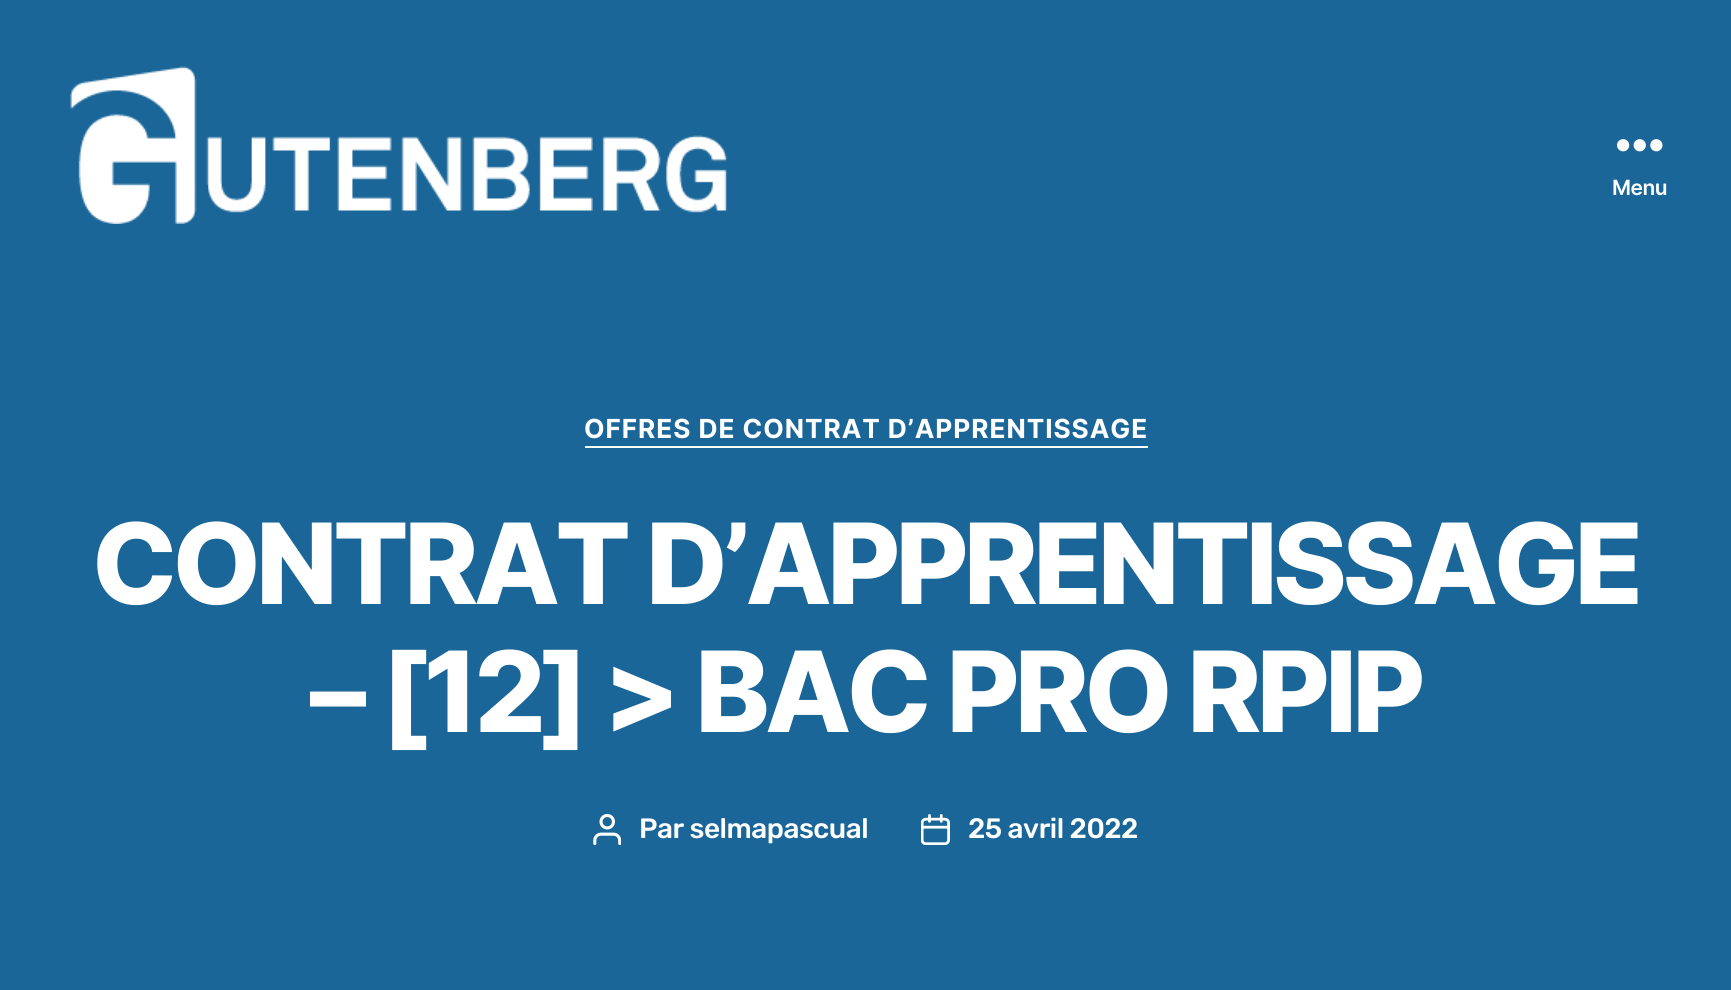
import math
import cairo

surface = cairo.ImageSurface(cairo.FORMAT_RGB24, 1731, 990)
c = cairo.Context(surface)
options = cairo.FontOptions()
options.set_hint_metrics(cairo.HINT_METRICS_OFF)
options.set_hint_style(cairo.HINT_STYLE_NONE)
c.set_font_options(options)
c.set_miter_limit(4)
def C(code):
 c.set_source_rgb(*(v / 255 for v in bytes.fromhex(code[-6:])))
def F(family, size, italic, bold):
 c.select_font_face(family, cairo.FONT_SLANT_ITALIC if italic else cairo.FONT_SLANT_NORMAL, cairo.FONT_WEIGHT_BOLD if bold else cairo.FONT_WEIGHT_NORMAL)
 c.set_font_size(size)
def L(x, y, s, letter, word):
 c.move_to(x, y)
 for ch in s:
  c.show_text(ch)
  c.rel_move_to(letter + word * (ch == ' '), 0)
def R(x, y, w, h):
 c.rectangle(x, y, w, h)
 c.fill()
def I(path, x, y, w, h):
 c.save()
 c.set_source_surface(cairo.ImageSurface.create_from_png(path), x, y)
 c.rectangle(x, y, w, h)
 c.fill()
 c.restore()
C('1a6698')
c.paint()
I('1.png',70,66,657,158)
I('2.png',1617,139,46,13)
F('Inter SemiBold',21,0,0)
C('ffffff')
L(1612,195,'Menu',-.5,0)
R(585,446,563,2)
F('Inter',26.25,0,1)
L(584,438,'OFFRES DE CONTRAT D’APPRENTISSAGE',.95,0)
F('Inter ExtraBold',112,0,0)
L(92,604,'CONTRAT D’APPRENTISSAGE',-4.7,0)
L(310,732,'– [12] > BAC PRO RPIP',-4.7,0)
I('3.png',593,814,28,31)
F('Rubik Medium',28,0,0)
L(639,838,'Par selmapascual',-.5,0)
I('4.png',921,814,29,31)
L(968,838,'25 avril 2022',-.5,0)
surface.write_to_png('o.png')
